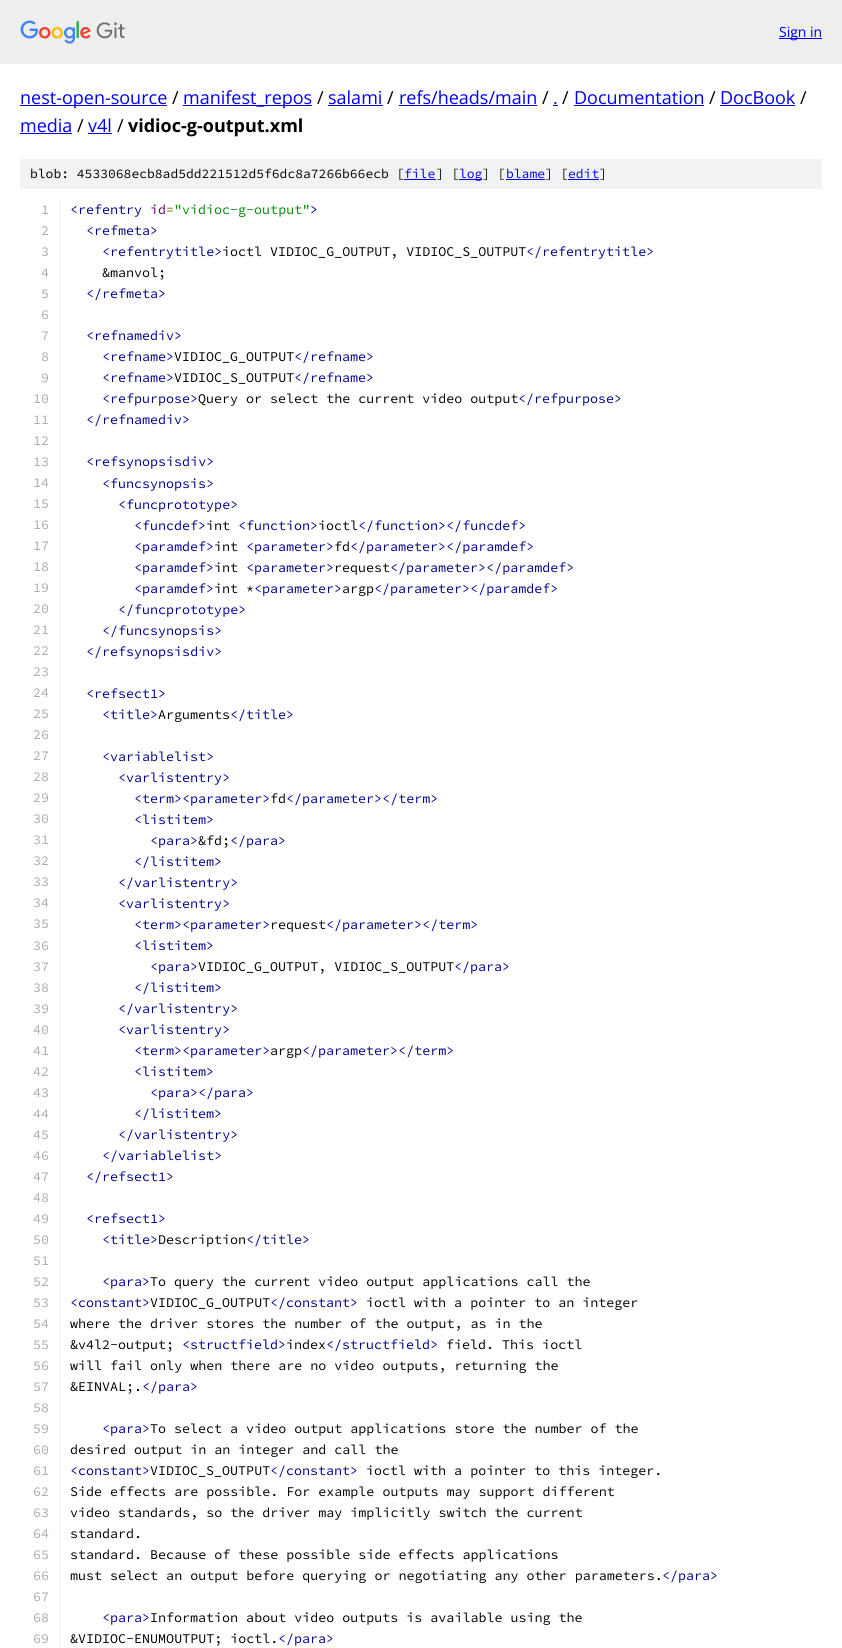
import math
import cairo

surface = cairo.ImageSurface(cairo.FORMAT_RGB24, 842, 1648)
c = cairo.Context(surface)
options = cairo.FontOptions()
options.set_hint_metrics(cairo.HINT_METRICS_OFF)
options.set_hint_style(cairo.HINT_STYLE_NONE)
c.set_font_options(options)
c.set_miter_limit(4)
def C(code):
 c.set_source_rgb(*(v / 255 for v in bytes.fromhex(code[-6:])))
def F(family, size, italic, bold):
 c.select_font_face(family, cairo.FONT_SLANT_ITALIC if italic else cairo.FONT_SLANT_NORMAL, cairo.FONT_WEIGHT_BOLD if bold else cairo.FONT_WEIGHT_NORMAL)
 c.set_font_size(size)
def T(x, y, s):
 c.move_to(x, y)
 c.show_text(s)
def R(x, y, w, h):
 c.rectangle(x, y, w, h)
 c.fill()
def I(path, x, y, w, h):
 c.save()
 c.set_source_surface(cairo.ImageSurface.create_from_png(path), x, y)
 c.rectangle(x, y, w, h)
 c.fill()
 c.restore()
C('ffffff')
c.paint()
C('eeeeee')
R(0,0,842,64)
I('1.png',20,20,105,24)
C('0000ee')
R(779,38,43,1)
F('Open Sans',14,0,0)
T(779,37,'Sign in')
R(20,105,147,1)
F('Open Sans',18,0,0)
T(20,104,'nest-open-source')
C('000000')
T(172,104,'/')
C('0000ee')
R(183,105,129,1)
T(183,104,'manifest_repos')
C('000000')
T(317,104,'/')
C('0000ee')
T(328,104,'salami')
R(328,105,55,1)
C('000000')
T(387,104,'/')
C('0000ee')
T(399,104,'refs/heads/main')
R(399,105,138,1)
C('000000')
T(542,104,'/')
C('0000ee')
T(553,104,'.')
R(553,105,5,1)
C('000000')
T(562,104,'/')
C('0000ee')
T(574,104,'Documentation')
R(574,105,130,1)
C('000000')
T(709,104,'/')
C('0000ee')
T(720,104,'DocBook')
R(720,105,75,1)
C('000000')
T(800,104,'/')
C('0000ee')
T(20,132,'media')
R(20,133,52,1)
C('000000')
T(77,132,'/')
C('0000ee')
T(88,132,'v4l')
R(88,133,24,1)
C('000000')
T(117,132,'/')
F('Open Sans',18,0,1)
T(128,132,'vidioc-g-output.xml')
C('f1f2f3')
R(20,159,802,30)
F('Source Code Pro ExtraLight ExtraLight',13,0,0)
C('000000')
T(30,178,'blob: 4533068ecb8ad5dd221512d5f6dc8a7266b66ecb [')
C('0000ee')
T(404,178,'file')
R(404,179,32,1)
C('000000')
T(436,178,'] [')
C('0000ee')
R(459,179,23,1)
T(459,178,'log')
C('000000')
T(482,178,'] [')
C('0000ee')
T(506,178,'blame')
R(506,179,39,1)
C('000000')
T(545,178,'] [')
C('0000ee')
T(568,178,'edit')
R(568,179,31,1)
C('000000')
T(599,178,']')
C('f1f2f3')
R(59,200,1,20)
F('Source Code Pro ExtraLight ExtraLight',13.35,0,0)
C('aaaaaa')
T(41,214,'1')
C('000088')
T(70,214,'<refentry')
C('660066')
T(150,214,'id')
C('666600')
T(166,214,'=')
C('008800')
T(174,214,'"vidioc-g-output"')
C('000088')
T(310,214,'>')
C('f1f2f3')
R(59,221,1,20)
C('aaaaaa')
T(41,235,'2')
C('000088')
T(86,235,'<refmeta>')
C('f1f2f3')
R(59,242,1,693)
C('aaaaaa')
T(41,256,'3')
C('000088')
T(102,256,'<refentrytitle>')
C('000000')
T(222,256,'ioctl VIDIOC_G_OUTPUT, VIDIOC_S_OUTPUT')
C('000088')
T(526,256,'</refentrytitle>')
C('aaaaaa')
T(41,277,'4')
C('000000')
T(102,277,'&manvol;')
C('aaaaaa')
T(41,298,'5')
C('000088')
T(86,298,'</refmeta>')
C('aaaaaa')
T(41,319,'6')
T(41,340,'7')
C('000088')
T(86,340,'<refnamediv>')
C('aaaaaa')
T(41,361,'8')
C('000088')
T(102,361,'<refname>')
C('000000')
T(174,361,'VIDIOC_G_OUTPUT')
C('000088')
T(294,361,'</refname>')
C('aaaaaa')
T(41,382,'9')
C('000088')
T(102,382,'<refname>')
C('000000')
T(174,382,'VIDIOC_S_OUTPUT')
C('000088')
T(294,382,'</refname>')
C('aaaaaa')
T(33,403,'10')
C('000088')
T(102,403,'<refpurpose>')
C('000000')
T(198,403,'Query or select the current video output')
C('000088')
T(518,403,'</refpurpose>')
C('aaaaaa')
T(33,424,'11')
C('000088')
T(86,424,'</refnamediv>')
C('aaaaaa')
T(33,445,'12')
T(33,466,'13')
C('000088')
T(86,466,'<refsynopsisdiv>')
C('aaaaaa')
T(33,487,'14')
C('000088')
T(102,488,'<funcsynopsis>')
C('aaaaaa')
T(33,508,'15')
C('000088')
T(118,509,'<funcprototype>')
C('aaaaaa')
T(33,529,'16')
C('000088')
T(134,530,'<funcdef>')
C('000000')
T(206,530,'int')
C('000088')
T(238,530,'<function>')
C('000000')
T(318,530,'ioctl')
C('000088')
T(358,530,'</function></funcdef>')
C('aaaaaa')
T(33,550,'17')
C('000088')
T(134,551,'<paramdef>')
C('000000')
T(214,551,'int')
C('000088')
T(246,551,'<parameter>')
C('000000')
T(334,551,'fd')
C('000088')
T(350,551,'</parameter></paramdef>')
C('aaaaaa')
T(33,571,'18')
C('000088')
T(134,572,'<paramdef>')
C('000000')
T(214,572,'int')
C('000088')
T(246,572,'<parameter>')
C('000000')
T(334,572,'request')
C('000088')
T(390,572,'</parameter></paramdef>')
C('aaaaaa')
T(33,592,'19')
C('000088')
T(134,593,'<paramdef>')
C('000000')
T(214,593,'int *')
C('000088')
T(254,593,'<parameter>')
C('000000')
T(342,593,'argp')
C('000088')
T(374,593,'</parameter></paramdef>')
C('aaaaaa')
T(33,613,'20')
C('000088')
T(118,614,'</funcprototype>')
C('aaaaaa')
T(33,634,'21')
C('000088')
T(102,635,'</funcsynopsis>')
C('aaaaaa')
T(33,655,'22')
C('000088')
T(86,656,'</refsynopsisdiv>')
C('aaaaaa')
T(33,676,'23')
T(33,697,'24')
C('000088')
T(86,698,'<refsect1>')
C('aaaaaa')
T(33,718,'25')
C('000088')
T(102,719,'<title>')
C('000000')
T(158,719,'Arguments')
C('000088')
T(230,719,'</title>')
C('aaaaaa')
T(33,739,'26')
T(33,760,'27')
C('000088')
T(102,761,'<variablelist>')
C('aaaaaa')
T(33,781,'28')
C('000088')
T(118,782,'<varlistentry>')
C('aaaaaa')
T(33,802,'29')
C('000088')
T(134,803,'<term><parameter>')
C('000000')
T(270,803,'fd')
C('000088')
T(286,803,'</parameter></term>')
C('aaaaaa')
T(33,823,'30')
C('000088')
T(134,824,'<listitem>')
C('aaaaaa')
T(33,844,'31')
C('000088')
T(150,845,'<para>')
C('000000')
T(198,845,'&fd;')
C('000088')
T(230,845,'</para>')
C('aaaaaa')
T(33,865,'32')
C('000088')
T(134,866,'</listitem>')
C('aaaaaa')
T(33,886,'33')
C('000088')
T(118,887,'</varlistentry>')
C('aaaaaa')
T(33,907,'34')
C('000088')
T(118,908,'<varlistentry>')
C('aaaaaa')
T(33,928,'35')
C('000088')
T(134,929,'<term><parameter>')
C('000000')
T(270,929,'request')
C('000088')
T(326,929,'</parameter></term>')
C('f1f2f3')
R(59,936,1,20)
C('aaaaaa')
T(33,950,'36')
C('000088')
T(134,950,'<listitem>')
C('f1f2f3')
R(59,957,1,20)
C('aaaaaa')
T(33,971,'37')
C('000088')
T(150,971,'<para>')
C('000000')
T(198,971,'VIDIOC_G_OUTPUT, VIDIOC_S_OUTPUT')
C('000088')
T(454,971,'</para>')
C('f1f2f3')
R(59,978,1,20)
C('aaaaaa')
T(33,992,'38')
C('000088')
T(134,992,'</listitem>')
C('f1f2f3')
R(59,999,1,20)
C('aaaaaa')
T(33,1013,'39')
C('000088')
T(118,1013,'</varlistentry>')
C('f1f2f3')
R(59,1020,1,20)
C('aaaaaa')
T(33,1034,'40')
C('000088')
T(118,1034,'<varlistentry>')
C('f1f2f3')
R(59,1041,1,20)
C('aaaaaa')
T(33,1055,'41')
C('000088')
T(134,1055,'<term><parameter>')
C('000000')
T(270,1055,'argp')
C('000088')
T(302,1055,'</parameter></term>')
C('f1f2f3')
R(59,1062,1,20)
C('aaaaaa')
T(33,1076,'42')
C('000088')
T(134,1076,'<listitem>')
C('f1f2f3')
R(59,1083,1,20)
C('aaaaaa')
T(33,1097,'43')
C('000088')
T(150,1097,'<para></para>')
C('f1f2f3')
R(59,1104,1,20)
C('aaaaaa')
T(33,1118,'44')
C('000088')
T(134,1118,'</listitem>')
C('f1f2f3')
R(59,1125,1,20)
C('aaaaaa')
T(33,1139,'45')
C('000088')
T(118,1139,'</varlistentry>')
C('f1f2f3')
R(59,1146,1,20)
C('aaaaaa')
T(33,1160,'46')
C('000088')
T(102,1160,'</variablelist>')
C('f1f2f3')
R(59,1167,1,20)
C('aaaaaa')
T(33,1181,'47')
C('000088')
T(86,1181,'</refsect1>')
C('f1f2f3')
R(59,1188,1,20)
C('aaaaaa')
T(33,1202,'48')
C('f1f2f3')
R(59,1209,1,20)
C('aaaaaa')
T(33,1223,'49')
C('000088')
T(86,1223,'<refsect1>')
C('f1f2f3')
R(59,1230,1,20)
C('aaaaaa')
T(33,1244,'50')
C('000088')
T(102,1244,'<title>')
C('000000')
T(158,1244,'Description')
C('000088')
T(246,1244,'</title>')
C('f1f2f3')
R(59,1251,1,20)
C('aaaaaa')
T(33,1265,'51')
C('f1f2f3')
R(59,1272,1,20)
C('aaaaaa')
T(33,1286,'52')
C('000088')
T(102,1286,'<para>')
C('000000')
T(150,1286,'To query the current video output applications call the')
C('f1f2f3')
R(59,1293,1,20)
C('aaaaaa')
T(33,1307,'53')
C('000088')
T(70,1307,'<constant>')
C('000000')
T(150,1307,'VIDIOC_G_OUTPUT')
C('000088')
T(270,1307,'</constant>')
C('000000')
T(366,1307,'ioctl with a pointer to an integer')
C('f1f2f3')
R(59,1314,1,20)
C('aaaaaa')
T(33,1328,'54')
C('000000')
T(70,1328,'where the driver stores the number of the output, as in the')
C('f1f2f3')
R(59,1335,1,20)
C('aaaaaa')
T(33,1349,'55')
C('000000')
T(70,1349,'&v4l2-output;')
C('000088')
T(182,1349,'<structfield>')
C('000000')
T(286,1349,'index')
C('000088')
T(326,1349,'</structfield>')
C('000000')
T(446,1349,'field. This ioctl')
C('f1f2f3')
R(59,1356,1,20)
C('aaaaaa')
T(33,1370,'56')
C('000000')
T(70,1370,'will fail only when there are no video outputs, returning the')
C('f1f2f3')
R(59,1377,1,20)
C('aaaaaa')
T(33,1391,'57')
C('000000')
T(70,1391,'&EINVAL;.')
C('000088')
T(142,1391,'</para>')
C('f1f2f3')
R(59,1398,1,20)
C('aaaaaa')
T(33,1412,'58')
C('f1f2f3')
R(59,1419,1,20)
C('aaaaaa')
T(33,1433,'59')
C('000088')
T(102,1433,'<para>')
C('000000')
T(150,1433,'To select a video output applications store the number of the')
C('f1f2f3')
R(59,1440,1,20)
C('aaaaaa')
T(33,1454,'60')
C('000000')
T(70,1454,'desired output in an integer and call the')
C('f1f2f3')
R(59,1461,1,20)
C('aaaaaa')
T(33,1475,'61')
C('000088')
T(70,1475,'<constant>')
C('000000')
T(150,1475,'VIDIOC_S_OUTPUT')
C('000088')
T(270,1475,'</constant>')
C('000000')
T(366,1475,'ioctl with a pointer to this integer.')
C('f1f2f3')
R(59,1482,1,20)
C('aaaaaa')
T(33,1496,'62')
C('000000')
T(70,1496,'Side effects are possible. For example outputs may support different')
C('f1f2f3')
R(59,1503,1,20)
C('aaaaaa')
T(33,1517,'63')
C('000000')
T(70,1517,'video standards, so the driver may implicitly switch the current')
C('f1f2f3')
R(59,1524,1,20)
C('aaaaaa')
T(33,1538,'64')
C('000000')
T(70,1538,'standard.')
C('f1f2f3')
R(59,1545,1,20)
C('aaaaaa')
T(33,1559,'65')
C('000000')
T(70,1559,'standard. Because of these possible side effects applications')
C('f1f2f3')
R(59,1566,1,20)
C('aaaaaa')
T(33,1580,'66')
C('000000')
T(70,1580,'must select an output before querying or negotiating any other parameters.')
C('000088')
T(662,1580,'</para>')
C('f1f2f3')
R(59,1587,1,61)
C('aaaaaa')
T(33,1601,'67')
T(33,1622,'68')
C('000088')
T(102,1622,'<para>')
C('000000')
T(150,1622,'Information about video outputs is available using the')
C('aaaaaa')
T(33,1643,'69')
C('000000')
T(70,1643,'&VIDIOC-ENUMOUTPUT; ioctl.')
C('000088')
T(278,1643,'</para>')
surface.write_to_png('o.png')
